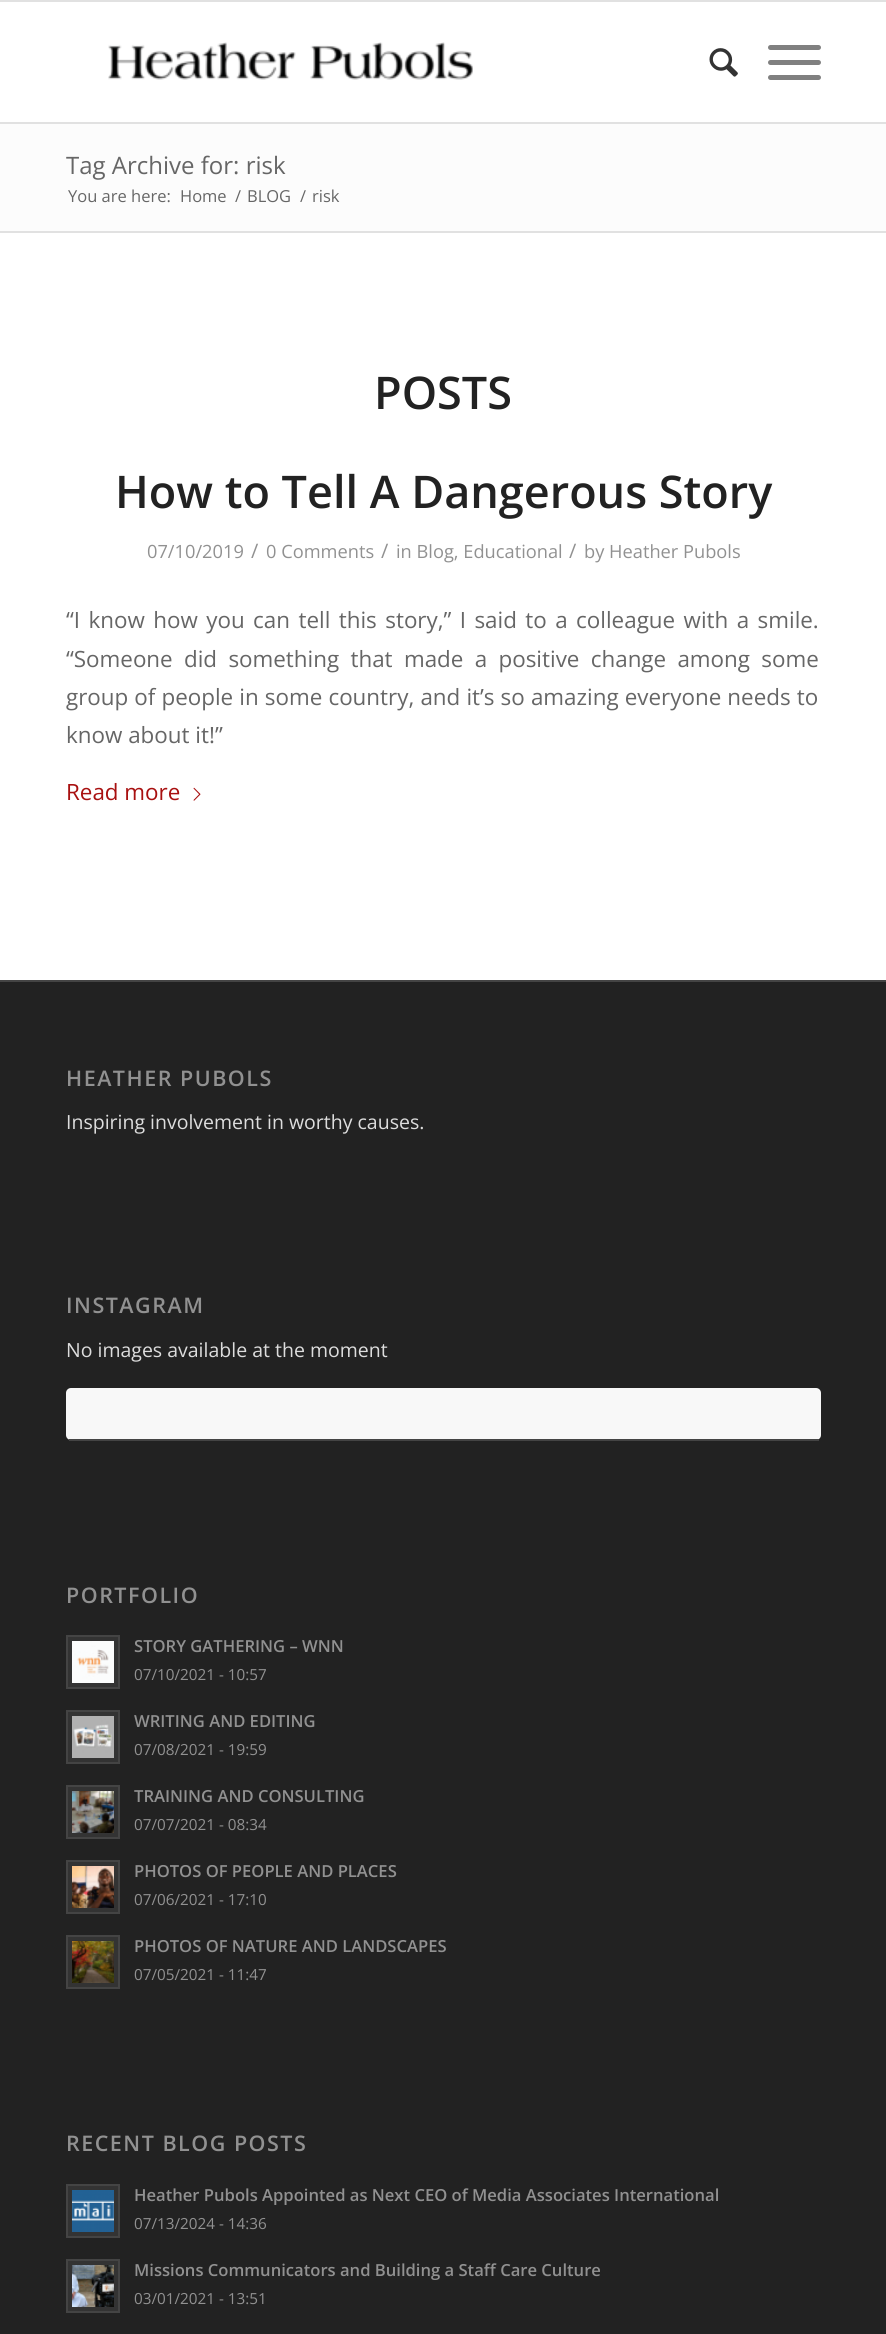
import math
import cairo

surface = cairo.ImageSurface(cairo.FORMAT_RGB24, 886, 2334)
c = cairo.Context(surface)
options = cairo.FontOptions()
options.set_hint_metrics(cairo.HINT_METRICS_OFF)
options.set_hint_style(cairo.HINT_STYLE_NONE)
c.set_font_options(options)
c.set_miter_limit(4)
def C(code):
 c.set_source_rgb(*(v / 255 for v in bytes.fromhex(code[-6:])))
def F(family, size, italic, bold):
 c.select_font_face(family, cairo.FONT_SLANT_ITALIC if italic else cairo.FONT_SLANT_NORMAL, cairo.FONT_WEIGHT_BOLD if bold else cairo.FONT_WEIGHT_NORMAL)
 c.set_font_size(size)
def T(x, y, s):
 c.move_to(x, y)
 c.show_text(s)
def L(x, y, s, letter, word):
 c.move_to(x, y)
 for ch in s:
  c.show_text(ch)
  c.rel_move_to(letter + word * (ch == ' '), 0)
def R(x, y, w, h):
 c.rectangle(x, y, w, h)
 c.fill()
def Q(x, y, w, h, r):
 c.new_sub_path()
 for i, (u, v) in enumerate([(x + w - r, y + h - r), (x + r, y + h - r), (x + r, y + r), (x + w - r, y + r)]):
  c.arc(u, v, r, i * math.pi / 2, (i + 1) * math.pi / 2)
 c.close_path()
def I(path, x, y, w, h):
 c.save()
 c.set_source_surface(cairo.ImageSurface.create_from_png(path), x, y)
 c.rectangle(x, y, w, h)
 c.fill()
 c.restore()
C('ffffff')
c.paint()
C('e1e1e1')
R(0,0,886,2)
R(0,122,886,2)
I('1.png',108,42,365,38)
I('2.png',709,48,29,29)
C('808080')
Q(768,60,53,5,2.5)
c.fill()
Q(768,45,53,5,2.5)
c.fill()
Q(768,75,53,5,2.5)
c.fill()
C('fcfcfc')
R(0,124,886,107)
F('Open Sans',24,0,0)
C('666666')
T(66,174,'Tag Archive for: risk')
F('Open Sans',16.5,0,0)
T(68,202,'You are here:')
T(180,202,'Home')
T(235,202,'/')
T(247,202,'BLOG')
T(300,202,'/')
T(312,202,'risk')
C('e1e1e1')
R(0,231,886,2)
F('Open Sans SemiBold',45,0,0)
C('222222')
T(374,409,'POSTS')
T(115,508,'How to Tell A Dangerous Story')
F('Open Sans',18.25,0,0)
C('919191')
T(147,558,'07/10/2019')
F('Open Sans',20,0,0)
T(251,558,'/')
F('Open Sans',18.25,0,0)
T(266,558,'0 Comments')
F('Open Sans',20,0,0)
T(381,558,'/')
F('Open Sans',18.25,0,0)
T(396,558,'in Blog, Educational')
F('Open Sans',20,0,0)
T(569,558,'/')
F('Open Sans',18.25,0,0)
T(584,558,'by Heather Pubols')
F('Open Sans',22.4,0,0)
C('666666')
L(66,628,'“I know how you can tell this story,” I said to a colleague with a smile.',0,2.6)
L(66,667,'“Someone did something that made a positive change among some',0,5.5)
L(66,705,'group of people in some country, and it’s so amazing everyone needs to',0,.3)
T(66,743,'know about it!”')
C('a81010')
T(66,800,'Read more')
I('3.png',193,787,8,14)
C('222222')
R(0,982,886,1352)
C('444444')
R(0,980,886,2)
F('Open Sans SemiBold',21.5,0,0)
C('919191')
L(66,1086,'HEATHER PUBOLS',1.5,0)
F('Open Sans',19.5,0,0)
C('dddddd')
T(66,1129,'Inspiring involvement in worthy causes.')
F('Open Sans SemiBold',21.5,0,0)
C('919191')
L(66,1313,'INSTAGRAM',1.5,0)
F('Open Sans',19.5,0,0)
C('dddddd')
T(66,1357,'No images available at the moment')
C('f8f8f8')
Q(66,1388,755,52,5)
c.fill()
C('444444')
R(69,1439,750,2)
F('Open Sans SemiBold',21.5,0,0)
C('919191')
L(66,1603,'PORTFOLIO',1.5,0)
C('333333')
c.rectangle(67,1636,52,52)
c.fill_preserve()
C('444444')
c.stroke()
I('4.png',72,1641,42,42)
F('Open Sans SemiBold',16.6,0,0)
C('919191')
T(134,1652,'STORY GATHERING – WNN')
F('Open Sans',15.25,0,0)
T(134,1680,'07/10/2021 - 10:57')
C('333333')
c.rectangle(67,1711,52,52)
c.fill_preserve()
C('444444')
c.stroke()
I('5.png',72,1716,42,42)
F('Open Sans SemiBold',16.6,0,0)
C('919191')
T(134,1727,'WRITING AND EDITING')
F('Open Sans',15.25,0,0)
T(134,1755,'07/08/2021 - 19:59')
C('333333')
c.rectangle(67,1786,52,52)
c.fill_preserve()
C('444444')
c.stroke()
I('6.png',72,1791,42,42)
F('Open Sans SemiBold',16.6,0,0)
C('919191')
T(134,1802,'TRAINING AND CONSULTING')
F('Open Sans',15.25,0,0)
T(134,1830,'07/07/2021 - 08:34')
C('333333')
c.rectangle(67,1861,52,52)
c.fill_preserve()
C('444444')
c.stroke()
I('7.png',72,1866,42,42)
F('Open Sans SemiBold',16.6,0,0)
C('919191')
T(134,1877,'PHOTOS OF PEOPLE AND PLACES')
F('Open Sans',15.25,0,0)
T(134,1905,'07/06/2021 - 17:10')
C('333333')
c.rectangle(67,1936,52,52)
c.fill_preserve()
C('444444')
c.stroke()
I('8.png',72,1941,42,42)
F('Open Sans SemiBold',16.6,0,0)
C('919191')
T(134,1952,'PHOTOS OF NATURE AND LANDSCAPES')
F('Open Sans',15.25,0,0)
T(134,1980,'07/05/2021 - 11:47')
F('Open Sans SemiBold',21.5,0,0)
L(66,2151,'RECENT BLOG POSTS',1.5,0)
C('333333')
c.rectangle(67,2185,52,52)
c.fill_preserve()
C('444444')
c.stroke()
I('9.png',72,2190,42,42)
F('Open Sans SemiBold',16.6,0,0)
C('919191')
T(134,2201,'Heather Pubols Appointed as Next CEO of Media Associates International')
F('Open Sans',15.25,0,0)
T(134,2229,'07/13/2024 - 14:36')
C('333333')
c.rectangle(67,2260,52,52)
c.fill_preserve()
C('444444')
c.stroke()
I('10.png',72,2265,42,42)
F('Open Sans SemiBold',16.6,0,0)
C('919191')
T(134,2276,'Missions Communicators and Building a Staff Care Culture')
F('Open Sans',15.25,0,0)
T(134,2304,'03/01/2021 - 13:51')
surface.write_to_png('o.png')
